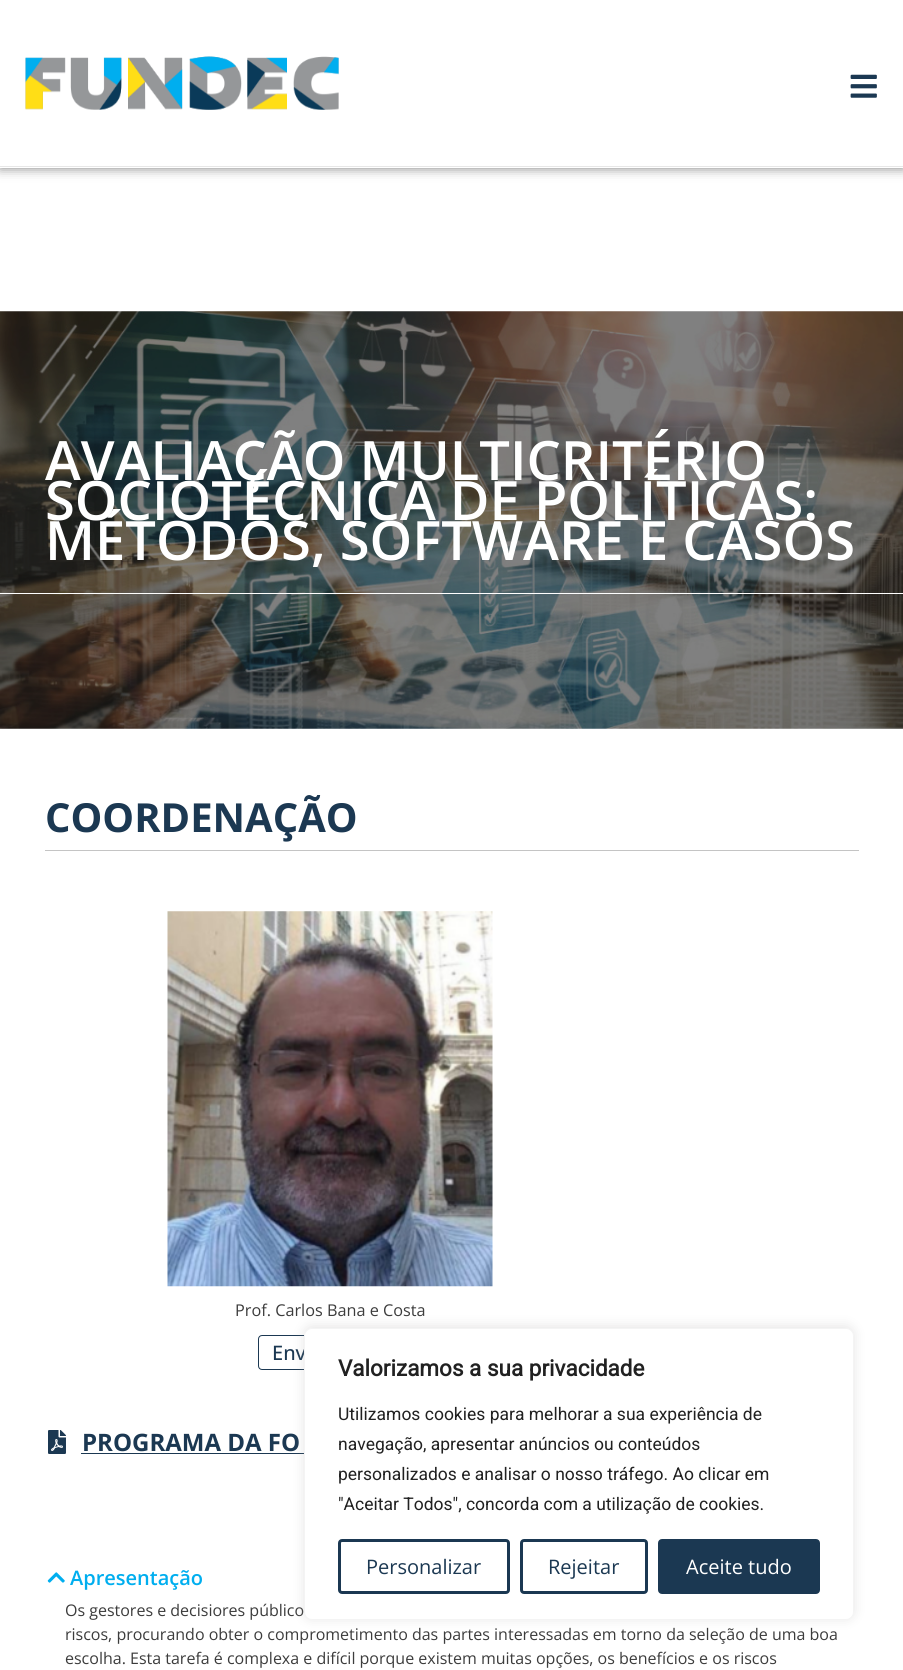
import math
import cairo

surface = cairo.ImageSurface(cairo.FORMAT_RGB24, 903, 1670)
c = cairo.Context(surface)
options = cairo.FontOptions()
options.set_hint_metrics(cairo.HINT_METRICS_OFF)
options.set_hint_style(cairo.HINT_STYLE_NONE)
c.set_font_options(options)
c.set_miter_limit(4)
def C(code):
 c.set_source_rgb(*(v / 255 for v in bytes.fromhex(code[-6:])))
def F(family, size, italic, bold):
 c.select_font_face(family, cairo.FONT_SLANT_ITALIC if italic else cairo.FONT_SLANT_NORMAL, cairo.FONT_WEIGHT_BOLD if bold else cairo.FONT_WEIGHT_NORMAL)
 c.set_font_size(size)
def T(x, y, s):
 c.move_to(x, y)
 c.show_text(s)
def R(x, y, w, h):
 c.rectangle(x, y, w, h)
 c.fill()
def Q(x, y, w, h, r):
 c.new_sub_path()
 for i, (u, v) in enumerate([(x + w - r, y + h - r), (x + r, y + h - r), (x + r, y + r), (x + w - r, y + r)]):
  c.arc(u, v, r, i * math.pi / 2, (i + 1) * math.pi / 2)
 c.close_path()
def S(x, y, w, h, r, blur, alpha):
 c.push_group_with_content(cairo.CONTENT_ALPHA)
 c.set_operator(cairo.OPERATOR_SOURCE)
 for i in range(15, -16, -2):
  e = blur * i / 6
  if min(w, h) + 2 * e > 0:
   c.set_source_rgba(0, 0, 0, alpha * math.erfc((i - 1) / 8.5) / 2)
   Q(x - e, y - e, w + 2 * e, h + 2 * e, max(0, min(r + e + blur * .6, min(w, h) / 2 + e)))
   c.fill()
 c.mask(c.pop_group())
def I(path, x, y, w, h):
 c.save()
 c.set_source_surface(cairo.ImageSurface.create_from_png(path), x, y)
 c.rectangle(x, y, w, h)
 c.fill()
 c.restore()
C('ffffff')
c.paint()
c.save()
c.set_fill_rule(cairo.FILL_RULE_EVEN_ODD)
c.new_path()
c.move_to(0,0)
c.line_to(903,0)
c.line_to(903,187)
c.line_to(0,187)
c.close_path()
c.move_to(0,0)
c.line_to(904,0)
c.line_to(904,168)
c.line_to(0,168)
c.close_path()
c.clip()
C('000000')
S(0,0,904,168,0,6,.5)
c.restore()
C('e7e7e7')
R(0,166,903,1)
I('1.png',25,56,314,54)
I('2.png',850,74,27,24)
I('3.png',0,311,903,418)
F('Open Sans SemiBold',54.25,0,0)
C('ffffff')
T(45,480,'AVALIAÇÃO MULTICRITÉRIO')
T(45,520,'SOCIOTÉCNICA DE POLÍTICAS:')
T(45,560,'MÉTODOS, SOFTWARE E CASOS')
R(0,593,903,1)
F('Open Sans',40,0,1)
C('1b3852')
T(45,832,'COORDENAÇÃO')
C('c4c4c4')
R(45,850,814,1)
I('4.png',167,911,326,376)
F('Open Sans',16.25,0,0)
C('3c3c3c')
T(235,1316,'Prof. Carlos Bana e Costa')
Q(258.5,1335.5,142,34,3.5)
C('1b3852')
c.set_line_width(1)
c.stroke()
F('Open Sans Medium',20,0,0)
T(272,1360,'Env')
I('5.png',48,1430,18,24)
F('Open Sans',24,0,1)
T(82,1451,'PROGRAMA DA FO')
R(81,1453,223,1)
I('6.png',47,1572,18,11)
F('Open Sans SemiBold',20,0,0)
C('00aeef')
T(70,1585,'Apresentação')
F('Open Sans',16,0,0)
C('3c3c3c')
T(65,1616,'Os gestores e decisiores público')
T(65,1640,'riscos, procurando obter o comprometimento das partes interessadas em torno da seleção de uma boa')
T(65,1664,'escolha. Esta tarefa é complexa e difícil porque existem muitas opções, os benefícios e os riscos')
C('acabab')
S(304,1326,550,293,8,6,.3)
C('ffffff')
Q(304.5,1328.5,549,291,7.5)
c.fill_preserve()
C('f4f4f4')
c.stroke()
F('Roboto',22.5,0,1)
C('212121')
T(338,1376,'Valorizamos a sua privacidade')
F('Roboto',17.5,0,0)
T(338,1420,'Utilizamos cookies para melhorar a sua experiência de')
T(338,1450,'navegação, apresentar anúncios ou conteúdos')
T(338,1480,'personalizados e analisar o nosso tráfego. Ao clicar em')
T(338,1510,'"Aceitar Todos", concorda com a utilização de cookies.')
Q(339.5,1540.5,169,52,2.5)
C('1b3852')
c.set_line_width(3)
c.stroke()
F('Open Sans',20,0,0)
T(366,1574,'Personalizar')
Q(521.5,1540.5,125,52,2.5)
c.stroke()
T(548,1574,'Rejeitar')
Q(659.5,1540.5,159,52,2.5)
c.fill_preserve()
c.stroke()
C('ffffff')
T(686,1574,'Aceite tudo')
surface.write_to_png('o.png')
